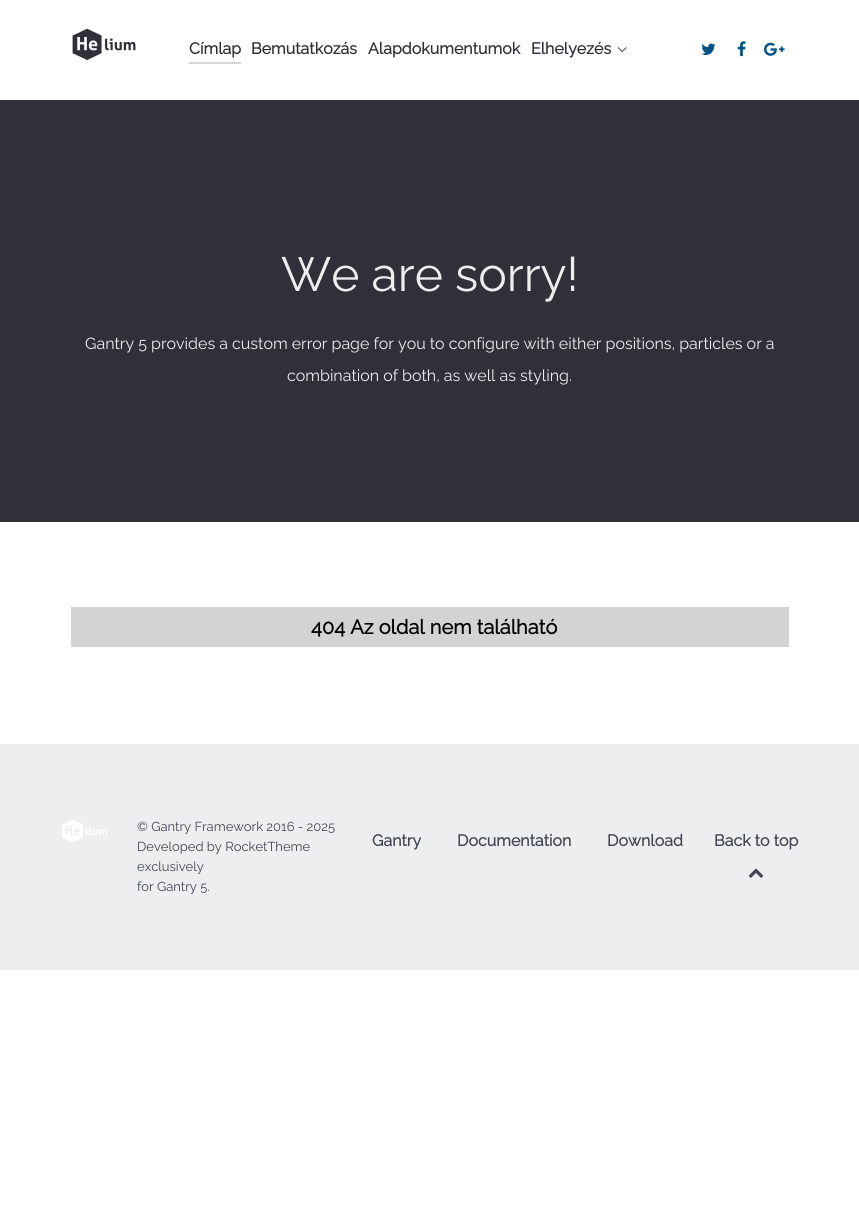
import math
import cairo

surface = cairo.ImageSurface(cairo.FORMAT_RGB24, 859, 1207)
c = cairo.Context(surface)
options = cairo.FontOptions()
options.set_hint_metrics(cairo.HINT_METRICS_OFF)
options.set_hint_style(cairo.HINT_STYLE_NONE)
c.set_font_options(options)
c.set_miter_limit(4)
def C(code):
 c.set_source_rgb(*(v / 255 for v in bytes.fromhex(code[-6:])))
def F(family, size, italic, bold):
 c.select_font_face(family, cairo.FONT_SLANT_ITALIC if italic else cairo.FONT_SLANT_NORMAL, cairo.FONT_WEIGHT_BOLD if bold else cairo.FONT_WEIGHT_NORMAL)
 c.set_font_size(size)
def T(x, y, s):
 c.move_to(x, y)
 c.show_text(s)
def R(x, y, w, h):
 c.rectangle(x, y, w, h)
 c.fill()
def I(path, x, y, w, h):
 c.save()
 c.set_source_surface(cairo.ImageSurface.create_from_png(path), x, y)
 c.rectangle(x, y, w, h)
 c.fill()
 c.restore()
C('ffffff')
c.paint()
I('1.png',72,28,64,32)
C('d6d5d7')
R(189,62,52,2)
F('Raleway',16,0,1)
C('312f38')
T(189,54,'Címlap')
T(251,54,'Bemutatkozás')
T(368,54,'Alapdokumentumok')
T(531,54,'Elhelyezés')
I('2.png',617,47,10,6)
I('3.png',701,43,15,12)
I('4.png',737,41,9,16)
I('5.png',764,42,21,14)
R(0,100,859,422)
F('Raleway Thin',48,0,0)
C('eceeef')
T(281,291,'We are sorry!')
F('Raleway Thin',16,0,0)
T(85,349,'Gantry 5 provides a custom error page for you to configure with either positions, particles or a')
T(287,381,'combination of both, as well as styling.')
C('d3d3d3')
R(71,607,718,40)
F('Raleway',20,0,1)
C('000000')
T(311,634,'404 Az oldal nem található')
C('eceeef')
R(0,744,859,226)
I('6.png',62,820,45,22)
F('Raleway Thin',13,0,0)
C('424753')
T(137,831,'© Gantry Framework 2016 - 2025')
T(137,851,'Developed by RocketTheme')
T(137,871,'exclusively')
T(137,891,'for Gantry 5.')
F('Raleway',16,0,1)
T(372,846,'Gantry')
T(457,846,'Documentation')
T(607,846,'Download')
T(714,846,'Back to top')
I('7.png',748,868,16,10)
surface.write_to_png('o.png')
